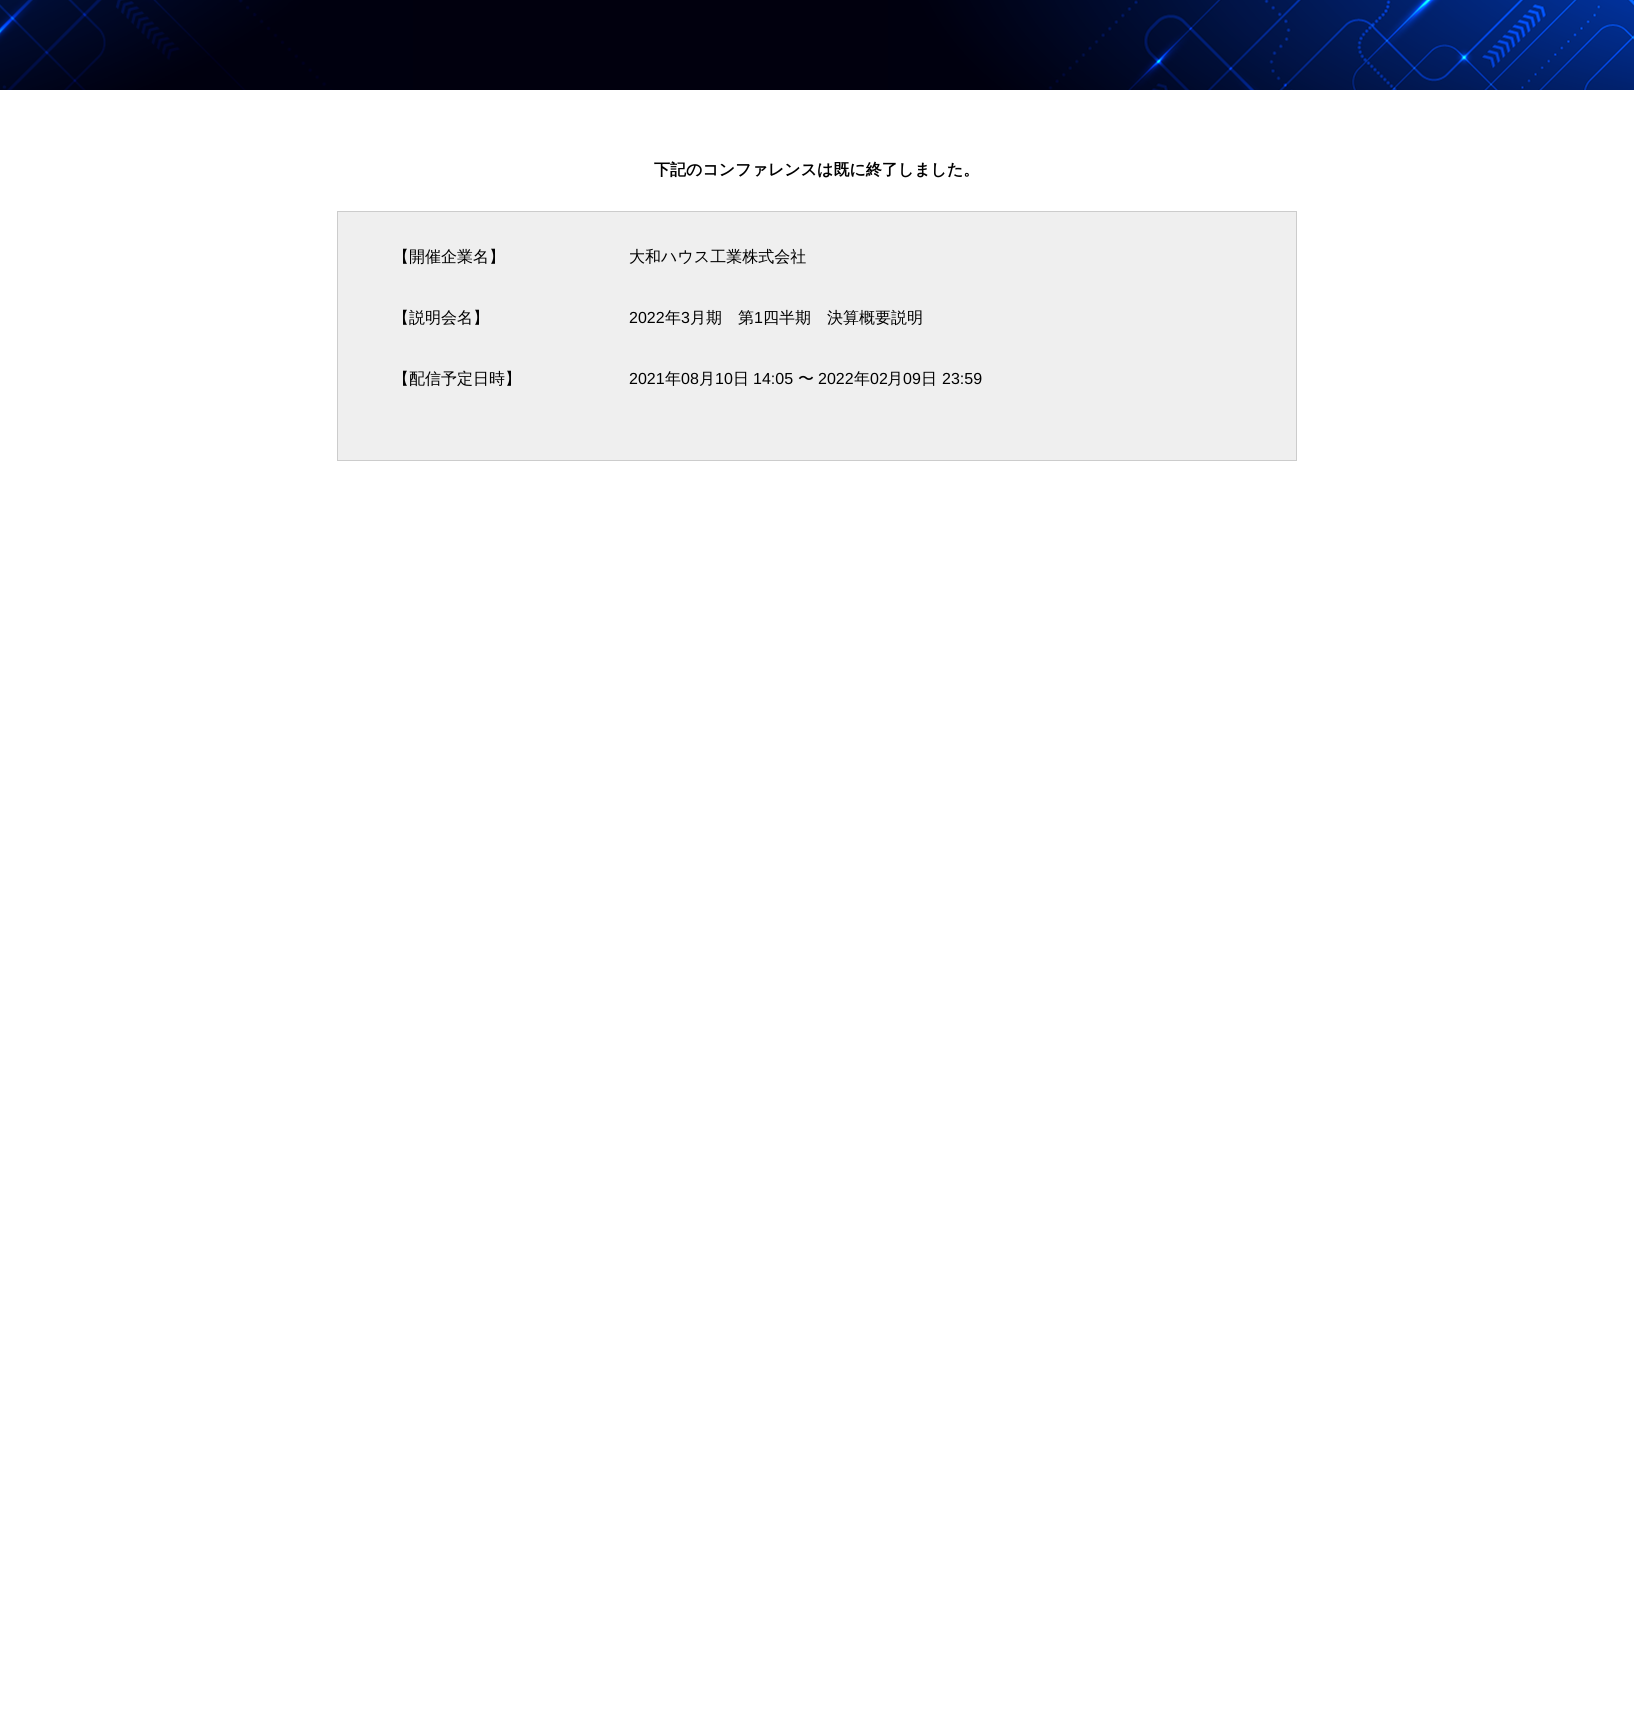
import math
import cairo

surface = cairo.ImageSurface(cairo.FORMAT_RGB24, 1634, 1710)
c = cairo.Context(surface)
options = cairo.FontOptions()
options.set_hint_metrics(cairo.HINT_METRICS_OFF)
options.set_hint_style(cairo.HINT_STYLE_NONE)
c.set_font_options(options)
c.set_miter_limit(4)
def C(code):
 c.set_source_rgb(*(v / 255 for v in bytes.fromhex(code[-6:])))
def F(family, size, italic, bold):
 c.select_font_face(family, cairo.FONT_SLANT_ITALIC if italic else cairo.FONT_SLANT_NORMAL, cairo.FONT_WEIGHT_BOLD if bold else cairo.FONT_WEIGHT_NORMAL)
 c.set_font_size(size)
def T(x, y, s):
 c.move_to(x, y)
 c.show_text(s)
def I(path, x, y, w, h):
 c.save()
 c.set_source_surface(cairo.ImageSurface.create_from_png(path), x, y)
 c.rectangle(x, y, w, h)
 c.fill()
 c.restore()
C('ffffff')
c.paint()
I('1.png',0,0,1634,90)
F('WenQuanYi Zen Hei',16,0,1)
C('000000')
T(654,175,'下記のコンファレンスは既に終了しました。')
C('efefef')
c.rectangle(337.5,211.5,959,249)
c.fill_preserve()
C('cccccc')
c.set_line_width(1)
c.stroke()
F('WenQuanYi Zen Hei Medium',16,0,0)
C('000000')
T(393,262,'【開催企業名】')
T(629,262,'大和ハウス工業株式会社')
T(393,323,'【説明会名】')
F('Liberation Sans',16,0,0)
T(629,323,'2022')
F('WenQuanYi Zen Hei Medium',16,0,0)
T(665,323,'年')
F('Liberation Sans',16,0,0)
T(681,323,'3')
F('WenQuanYi Zen Hei Medium',16,0,0)
T(690,323,'月期　第')
F('Liberation Sans',16,0,0)
T(754,323,'1')
F('WenQuanYi Zen Hei Medium',16,0,0)
T(763,323,'四半期　決算概要説明')
T(393,384,'【配信予定日時】')
F('Liberation Sans',16,0,0)
T(629,384,'2021')
F('WenQuanYi Zen Hei Medium',16,0,0)
T(665,384,'年')
F('Liberation Sans',16,0,0)
T(681,384,'08')
F('WenQuanYi Zen Hei Medium',16,0,0)
T(699,384,'月')
F('Liberation Sans',16,0,0)
T(715,384,'10')
F('WenQuanYi Zen Hei Medium',16,0,0)
T(733,384,'日')
F('Liberation Sans',16,0,0)
T(753,384,'14:05')
F('WenQuanYi Zen Hei Medium',16,0,0)
T(798,384,'〜')
F('Liberation Sans',16,0,0)
T(818,384,'2022')
F('WenQuanYi Zen Hei Medium',16,0,0)
T(854,384,'年')
F('Liberation Sans',16,0,0)
T(870,384,'02')
F('WenQuanYi Zen Hei Medium',16,0,0)
T(887,384,'月')
F('Liberation Sans',16,0,0)
T(903,384,'09')
F('WenQuanYi Zen Hei Medium',16,0,0)
T(921,384,'日')
F('Liberation Sans',16,0,0)
T(942,384,'23:59')
surface.write_to_png('o.png')
